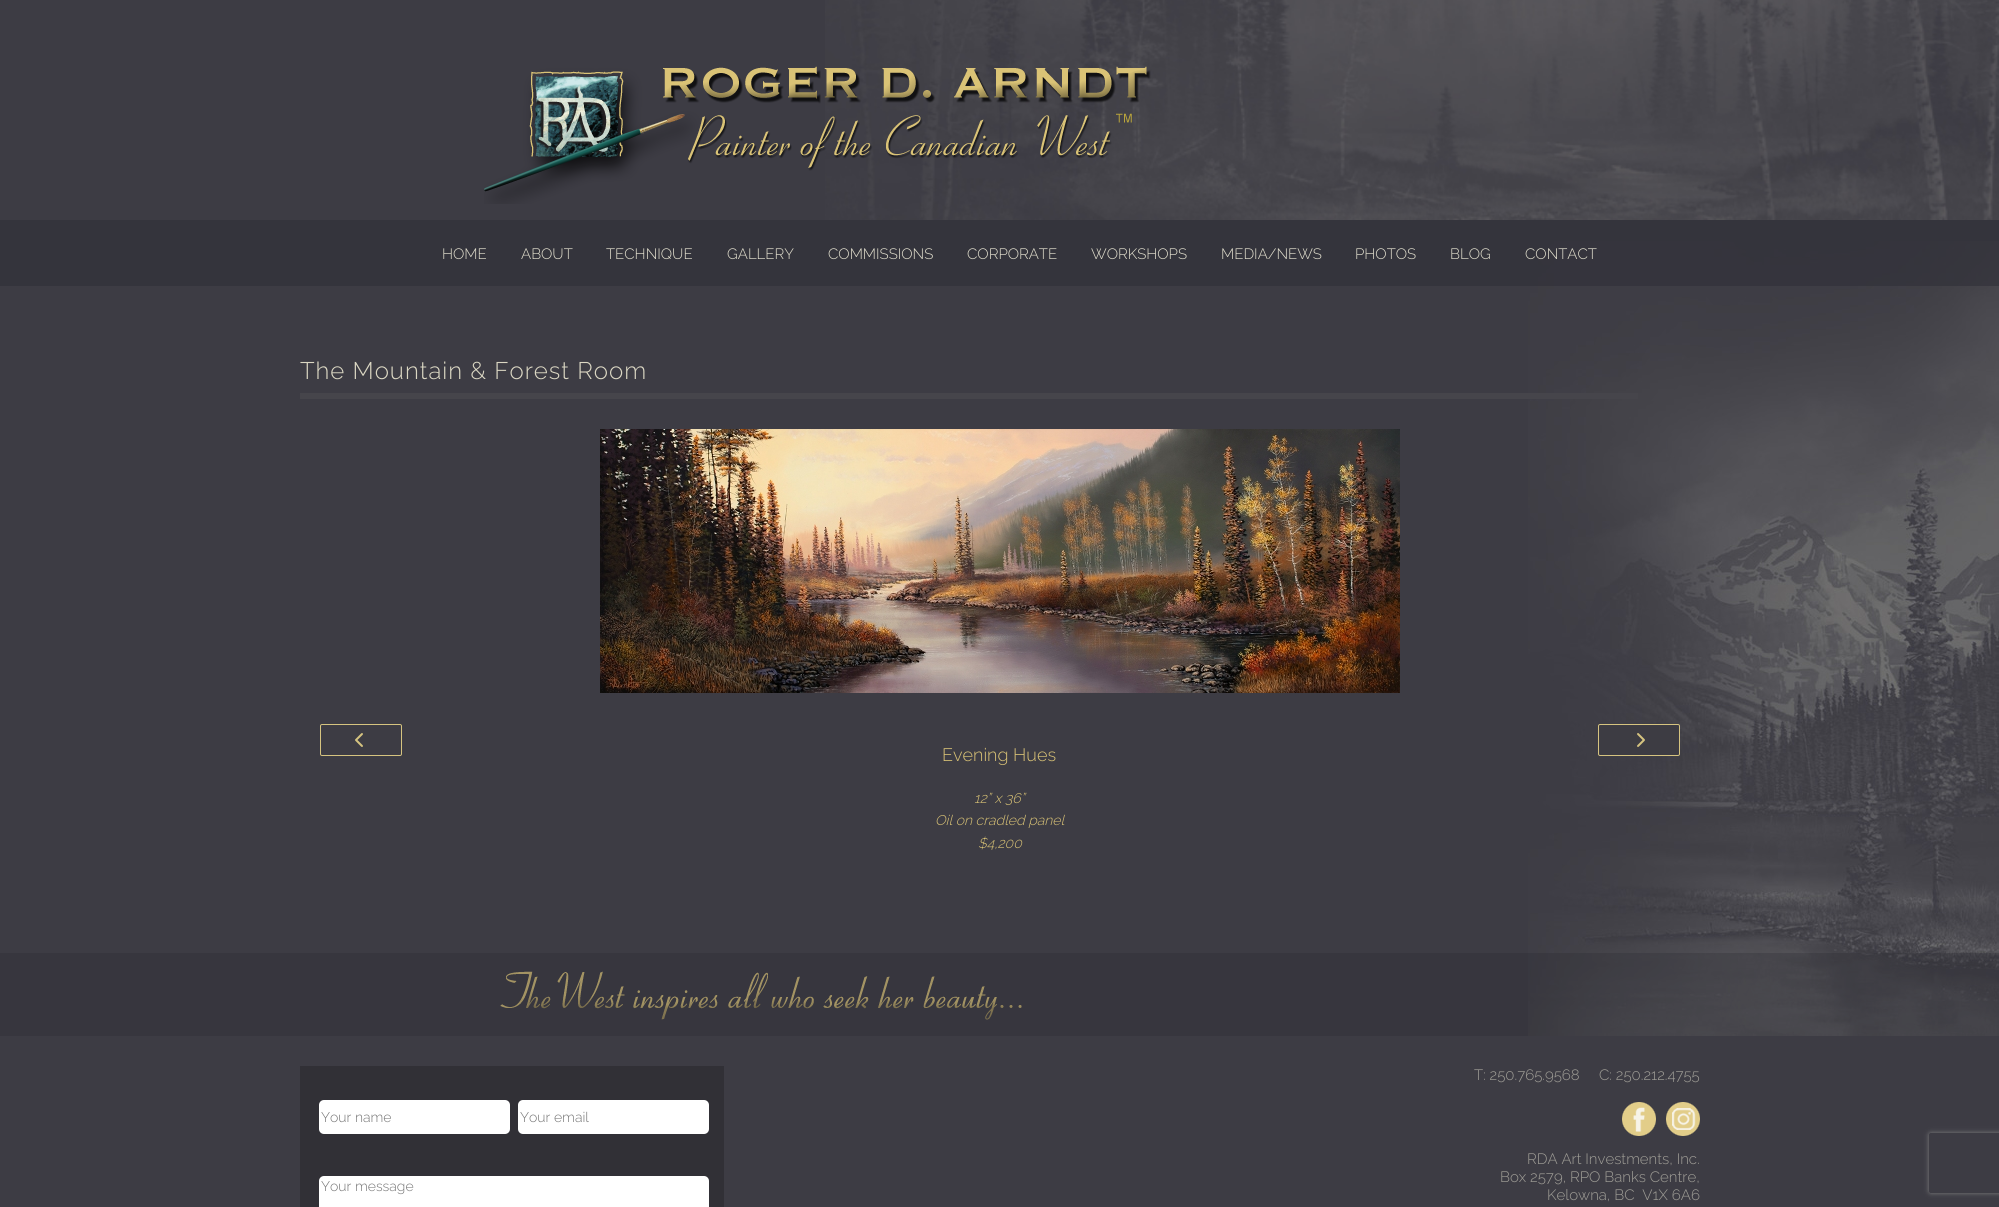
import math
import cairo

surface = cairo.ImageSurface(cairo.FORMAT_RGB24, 1999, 1207)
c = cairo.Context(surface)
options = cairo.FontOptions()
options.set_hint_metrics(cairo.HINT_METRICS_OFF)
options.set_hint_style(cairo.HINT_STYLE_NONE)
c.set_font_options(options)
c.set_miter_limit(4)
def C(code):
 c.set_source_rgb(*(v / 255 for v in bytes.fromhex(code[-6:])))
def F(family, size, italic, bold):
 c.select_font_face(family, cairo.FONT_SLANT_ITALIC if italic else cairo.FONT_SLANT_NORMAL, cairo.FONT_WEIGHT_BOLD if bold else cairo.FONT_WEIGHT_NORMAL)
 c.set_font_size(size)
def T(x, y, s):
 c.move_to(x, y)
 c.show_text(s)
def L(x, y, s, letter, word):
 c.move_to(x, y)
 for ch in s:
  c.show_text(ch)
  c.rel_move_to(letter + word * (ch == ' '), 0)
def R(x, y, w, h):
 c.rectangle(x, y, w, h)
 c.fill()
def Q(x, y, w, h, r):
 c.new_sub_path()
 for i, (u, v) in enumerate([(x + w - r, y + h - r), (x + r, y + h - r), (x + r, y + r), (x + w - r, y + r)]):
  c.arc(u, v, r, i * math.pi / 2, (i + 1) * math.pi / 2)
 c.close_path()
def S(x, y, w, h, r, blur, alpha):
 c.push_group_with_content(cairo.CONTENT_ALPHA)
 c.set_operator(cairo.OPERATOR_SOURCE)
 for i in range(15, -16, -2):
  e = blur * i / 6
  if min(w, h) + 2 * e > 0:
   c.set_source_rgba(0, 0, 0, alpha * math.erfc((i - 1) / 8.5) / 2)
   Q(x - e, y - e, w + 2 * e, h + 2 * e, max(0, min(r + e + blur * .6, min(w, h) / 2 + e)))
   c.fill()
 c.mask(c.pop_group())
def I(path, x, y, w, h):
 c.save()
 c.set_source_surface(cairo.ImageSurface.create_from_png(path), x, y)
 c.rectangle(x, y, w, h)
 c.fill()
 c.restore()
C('3d3c44')
c.paint()
I('1.png',825,0,1174,220)
I('2.png',484,66,667,138)
I('3.png',1528,241,471,795)
c.set_source_rgba(0.188,0.184,0.216,0.6)
R(0,220,1999,66)
F('Raleway Light',15,0,0)
C('e2dfce')
T(442,259,'HOME')
T(521,259,'ABOUT')
T(606,259,'TECHNIQUE')
T(727,259,'GALLERY')
T(828,259,'COMMISSIONS')
T(967,259,'CORPORATE')
T(1091,259,'WORKSHOPS')
T(1221,259,'MEDIA/NEWS')
T(1355,259,'PHOTOS')
T(1450,259,'BLOG')
T(1525,259,'CONTACT')
C('46454b')
R(300,393,1338,6)
F('Raleway Light',24,0,0)
C('dbd7c3')
L(300,379,'The Mountain & Forest Room',1,0)
I('4.png',600,429,800,264)
Q(320.5,724.5,81,31,1.5)
C('d6c480')
c.set_line_width(1)
c.stroke()
I('5.png',355,733,8,14)
F('Raleway Light',18,0,0)
C('dac376')
T(942,761,'Evening Hues')
C('3d3c43')
Q(1598.5,724.5,81,31,1.5)
c.fill_preserve()
C('d6c480')
c.stroke()
I('6.png',1637,733,8,14)
F('Raleway Light',14,1,0)
C('dac376')
T(974,803,'12” x 36”')
T(935,825,'Oil on cradled panel')
T(978,848,'$4,200')
c.set_source_rgba(0.157,0.157,0.184,0.28)
R(0,953,1999,83)
I('7.png',500,971,522,49)
C('313036')
R(300,1066,424,141)
C('ffffff')
Q(319,1100,191,34,5)
c.fill()
F('Raleway Light',14,0,0)
C('757575')
T(321,1122,'Your name')
C('ffffff')
Q(518,1100,191,34,5)
c.fill()
C('757575')
T(520,1122,'Your email')
C('ffffff')
Q(319,1176,390,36,5)
c.fill()
C('757575')
T(321,1191,'Your message')
F('Raleway Light',15,0,0)
C('a09e97')
T(1474,1080,'T: 250.765.9568     C: 250.212.4755')
I('8.png',1622,1102,34,34)
I('9.png',1666,1102,34,34)
T(1527,1164,'RDA Art Investments, Inc.')
T(1500,1182,'Box 2579, RPO Banks Centre,')
T(1547,1200,'Kelowna, BC  V1X 6A6')
c.save()
c.set_fill_rule(cairo.FILL_RULE_EVEN_ODD)
c.new_path()
c.move_to(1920,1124)
c.line_to(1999,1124)
c.line_to(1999,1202)
c.line_to(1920,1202)
c.close_path()
c.move_to(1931,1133)
c.line_to(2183,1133)
c.curve_to(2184,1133,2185,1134,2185,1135)
c.line_to(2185,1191)
c.curve_to(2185,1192,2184,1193,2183,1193)
c.line_to(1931,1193)
c.curve_to(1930,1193,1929,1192,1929,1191)
c.line_to(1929,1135)
c.curve_to(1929,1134,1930,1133,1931,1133)
c.close_path()
c.clip()
C('808080')
S(1929,1133,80,60,2,2.5,1)
c.restore()
surface.write_to_png('o.png')
